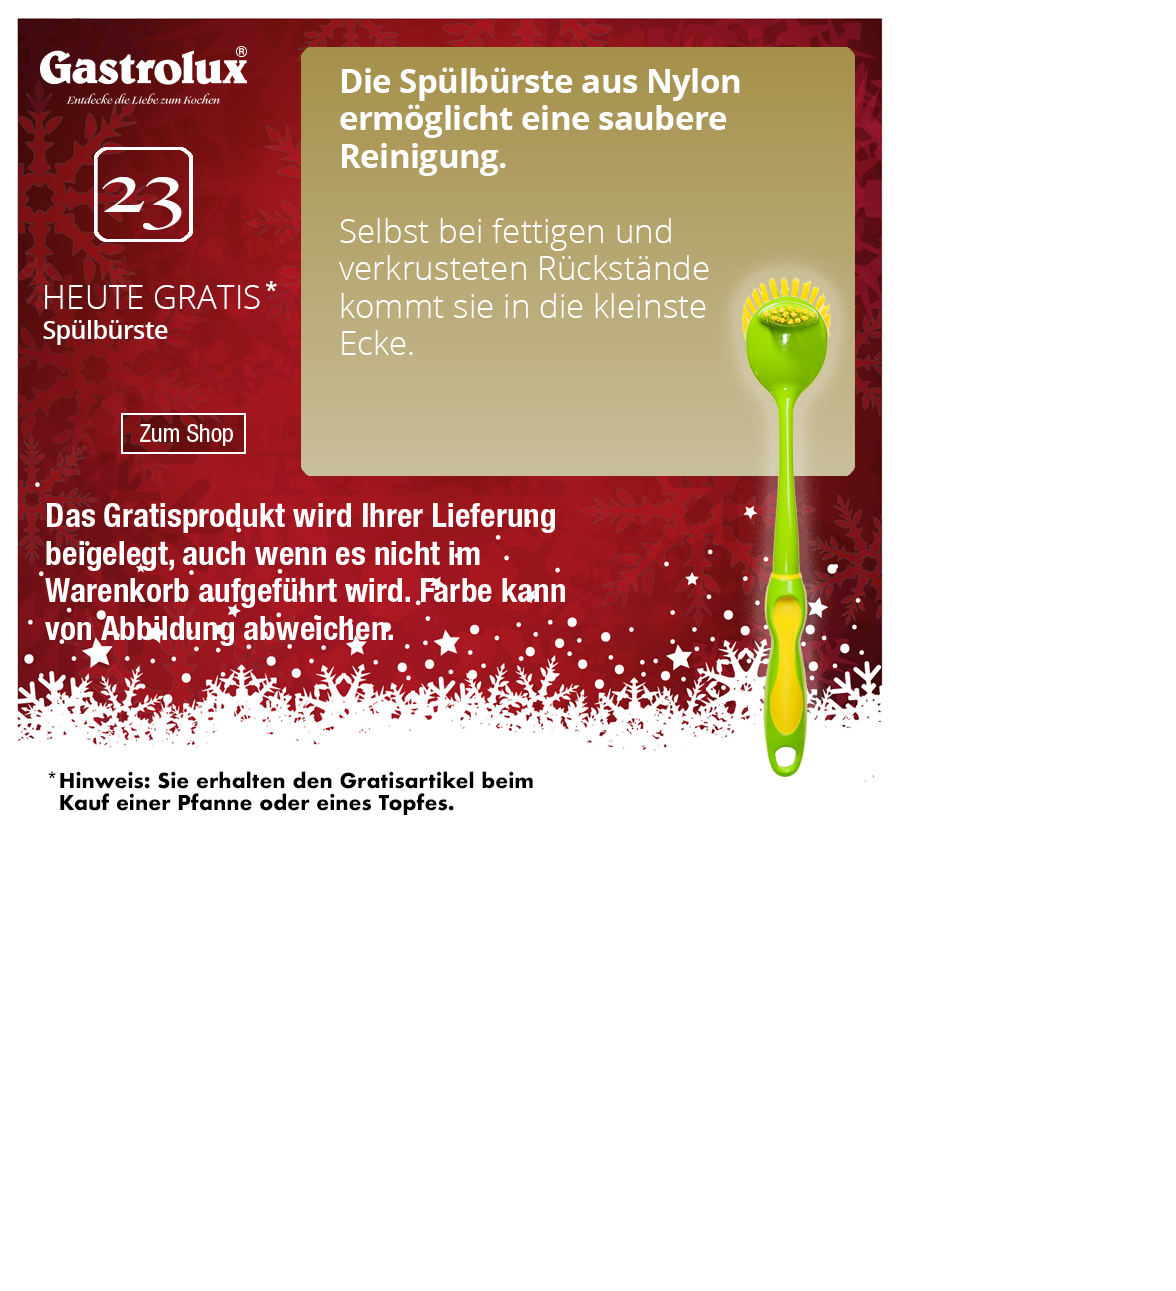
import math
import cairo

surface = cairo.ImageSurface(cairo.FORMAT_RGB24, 1176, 1291)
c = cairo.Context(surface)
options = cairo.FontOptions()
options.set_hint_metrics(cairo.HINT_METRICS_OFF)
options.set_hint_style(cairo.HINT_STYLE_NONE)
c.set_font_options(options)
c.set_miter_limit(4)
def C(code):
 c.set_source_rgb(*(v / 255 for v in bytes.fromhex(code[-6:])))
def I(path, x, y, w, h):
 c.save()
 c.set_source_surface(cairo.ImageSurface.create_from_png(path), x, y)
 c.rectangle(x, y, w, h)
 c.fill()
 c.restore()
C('ffffff')
c.paint()
I('1.png',17,17,866,798)
I('2.png',121,413,125,41)
surface.write_to_png('o.png')
